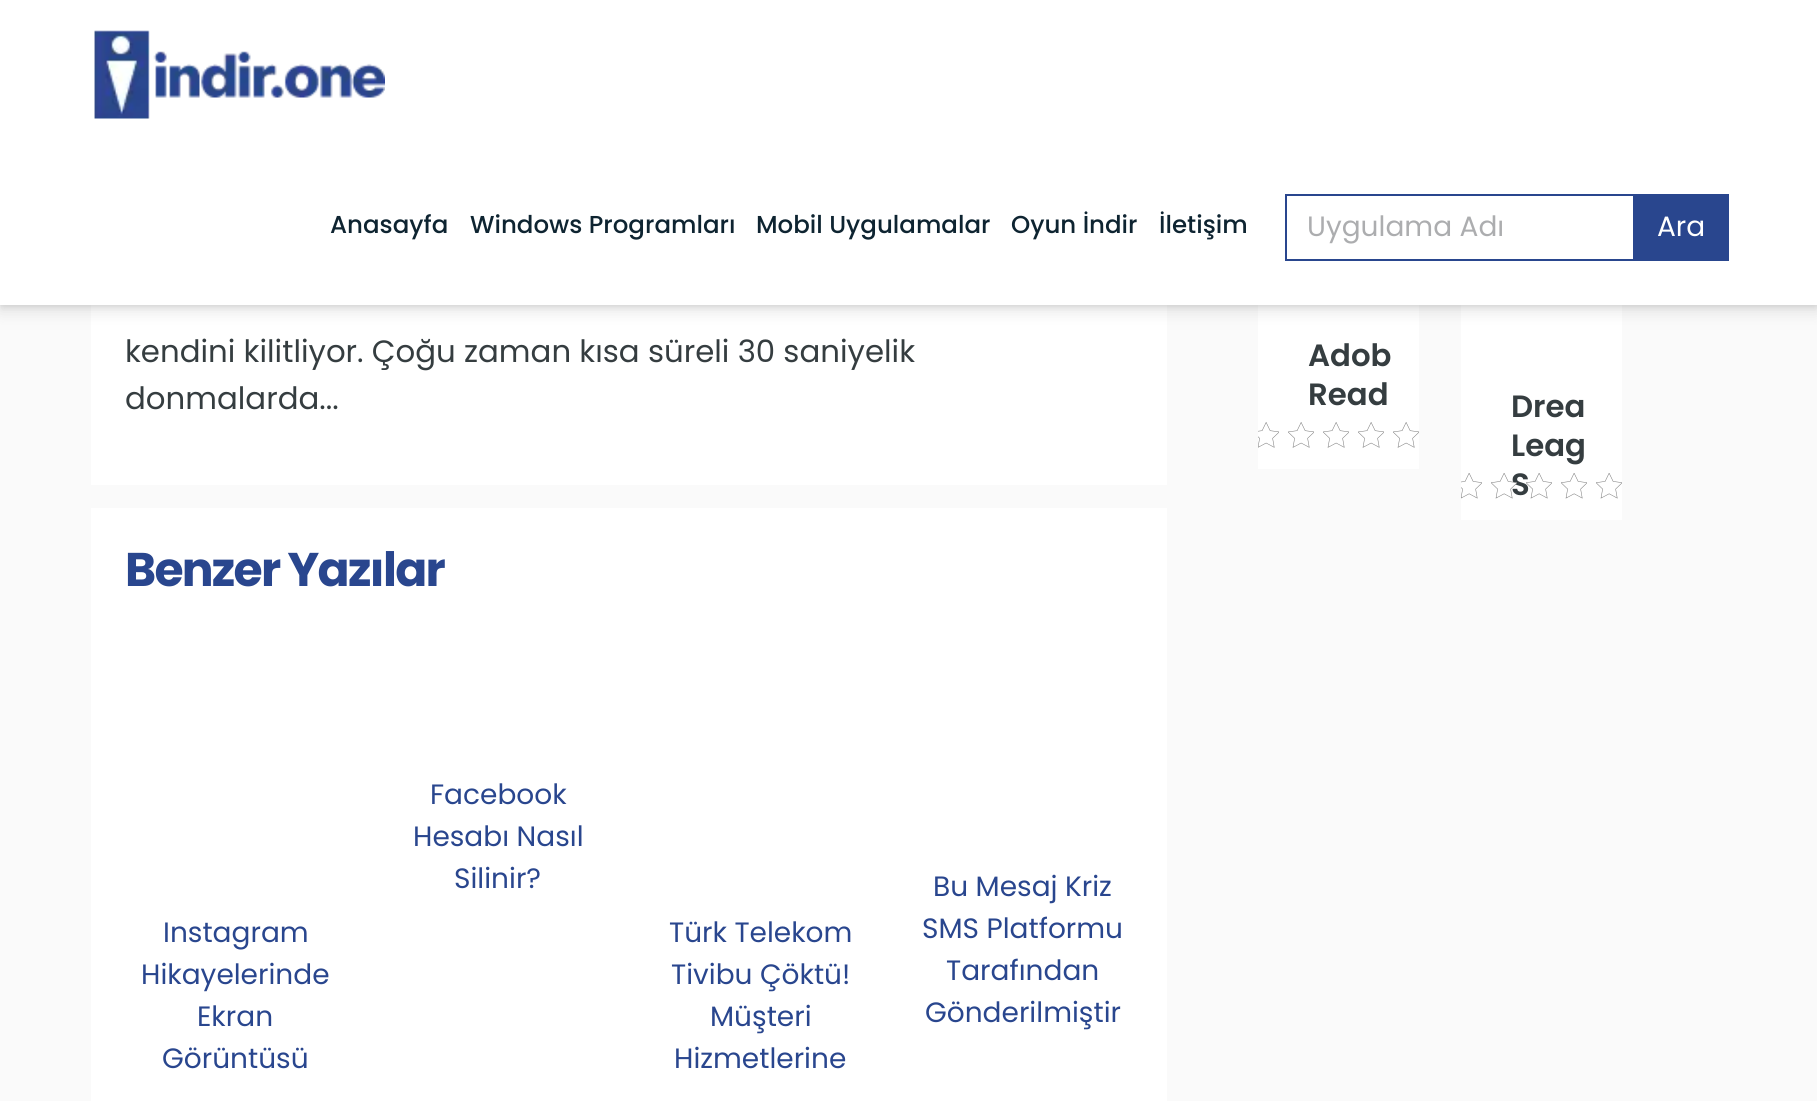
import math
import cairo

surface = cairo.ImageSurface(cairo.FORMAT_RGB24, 1817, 1101)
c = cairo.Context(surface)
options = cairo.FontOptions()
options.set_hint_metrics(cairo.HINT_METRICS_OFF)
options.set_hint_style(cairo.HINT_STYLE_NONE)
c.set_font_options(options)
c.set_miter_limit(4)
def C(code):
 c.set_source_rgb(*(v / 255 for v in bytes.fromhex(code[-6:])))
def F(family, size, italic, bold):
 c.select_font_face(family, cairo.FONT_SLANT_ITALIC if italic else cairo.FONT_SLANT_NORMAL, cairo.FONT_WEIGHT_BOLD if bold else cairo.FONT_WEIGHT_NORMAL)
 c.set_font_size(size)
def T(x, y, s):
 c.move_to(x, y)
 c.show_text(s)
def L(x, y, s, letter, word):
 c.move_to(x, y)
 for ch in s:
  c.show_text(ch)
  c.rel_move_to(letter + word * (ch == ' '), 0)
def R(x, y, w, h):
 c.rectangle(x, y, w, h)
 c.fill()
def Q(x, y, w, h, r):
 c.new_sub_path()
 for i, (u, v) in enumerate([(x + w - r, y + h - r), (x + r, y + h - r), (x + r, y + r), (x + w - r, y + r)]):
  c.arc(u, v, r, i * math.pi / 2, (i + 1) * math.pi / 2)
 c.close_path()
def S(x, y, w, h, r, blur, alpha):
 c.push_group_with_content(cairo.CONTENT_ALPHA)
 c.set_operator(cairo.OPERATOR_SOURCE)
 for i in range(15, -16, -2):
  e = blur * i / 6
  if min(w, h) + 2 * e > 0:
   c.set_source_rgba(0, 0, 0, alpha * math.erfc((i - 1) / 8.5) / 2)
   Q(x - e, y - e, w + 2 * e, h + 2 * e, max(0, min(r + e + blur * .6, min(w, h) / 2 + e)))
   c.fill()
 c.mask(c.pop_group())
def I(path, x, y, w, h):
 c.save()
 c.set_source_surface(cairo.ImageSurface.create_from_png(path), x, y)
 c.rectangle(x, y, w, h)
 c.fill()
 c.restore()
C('fafafa')
c.paint()
C('ffffff')
R(91,305,1076,180)
R(1258,305,161,164)
R(1461,305,161,215)
C('000000')
S(0,7,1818,305,0,7,.1)
S(0,0,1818,305,0,3.5,.14)
C('ffffff')
R(0,0,1817,305)
I('1.png',94,30,291,89)
F('Poppins Medium',24.5,0,0)
C('0e2431')
T(330,233,'Anasayfa')
T(470,233,'Windows Programları')
T(756,233,'Mobil Uygulamalar')
T(1011,233,'Oyun İndir')
T(1159,233,'İletişim')
c.rectangle(1286,195,348,65)
C('29468e')
c.stroke()
F('Poppins',28,0,0)
C('acadaf')
T(1307,236,'Uygulama Adı')
C('29468e')
R(1635,194,94,67)
C('ffffff')
T(1657,236,'Ara')
F('Poppins',30.8,0,0)
C('353d40')
T(125,362,'kendini kilitliyor. Çoğu zaman kısa süreli 30 saniyelik')
T(125,409,'donmalarda...')
C('ffffff')
R(91,508,1076,593)
F('Poppins',47.25,0,1)
C('29468e')
L(125,586,'Benzer Yazılar',-1.75,0)
F('Poppins',28,0,0)
T(430,804,'Facebook')
T(413,846,'Hesabı Nasıl')
T(454,888,'Silinir?')
T(163,942,'Instagram')
T(141,984,'Hikayelerinde')
T(197,1026,'Ekran')
T(162,1068,'Görüntüsü')
T(669,942,'Türk Telekom')
T(671,984,'Tivibu Çöktü!')
T(710,1026,'Müşteri')
T(674,1068,'Hizmetlerine')
T(933,896,'Bu Mesaj Kriz')
T(922,938,'SMS Platformu')
T(946,980,'Tarafından')
T(925,1022,'Gönderilmiştir')
F('Poppins SemiBold',30.8,0,0)
C('353d40')
T(1308,366,'Adob')
T(1308,405,'Read')
I('2.png',1258,422,21,26)
I('3.png',1288,422,26,26)
I('3.png',1323,422,26,26)
I('3.png',1358,422,26,26)
I('3.png',1393,422,26,26)
T(1511,417,'Drea')
T(1511,456,'Leag')
T(1511,495,'S')
I('4.png',1461,473,21,26)
I('5.png',1491,473,26,26)
I('6.png',1526,473,26,26)
I('7.png',1561,473,26,26)
I('8.png',1596,473,26,26)
surface.write_to_png('o.png')
